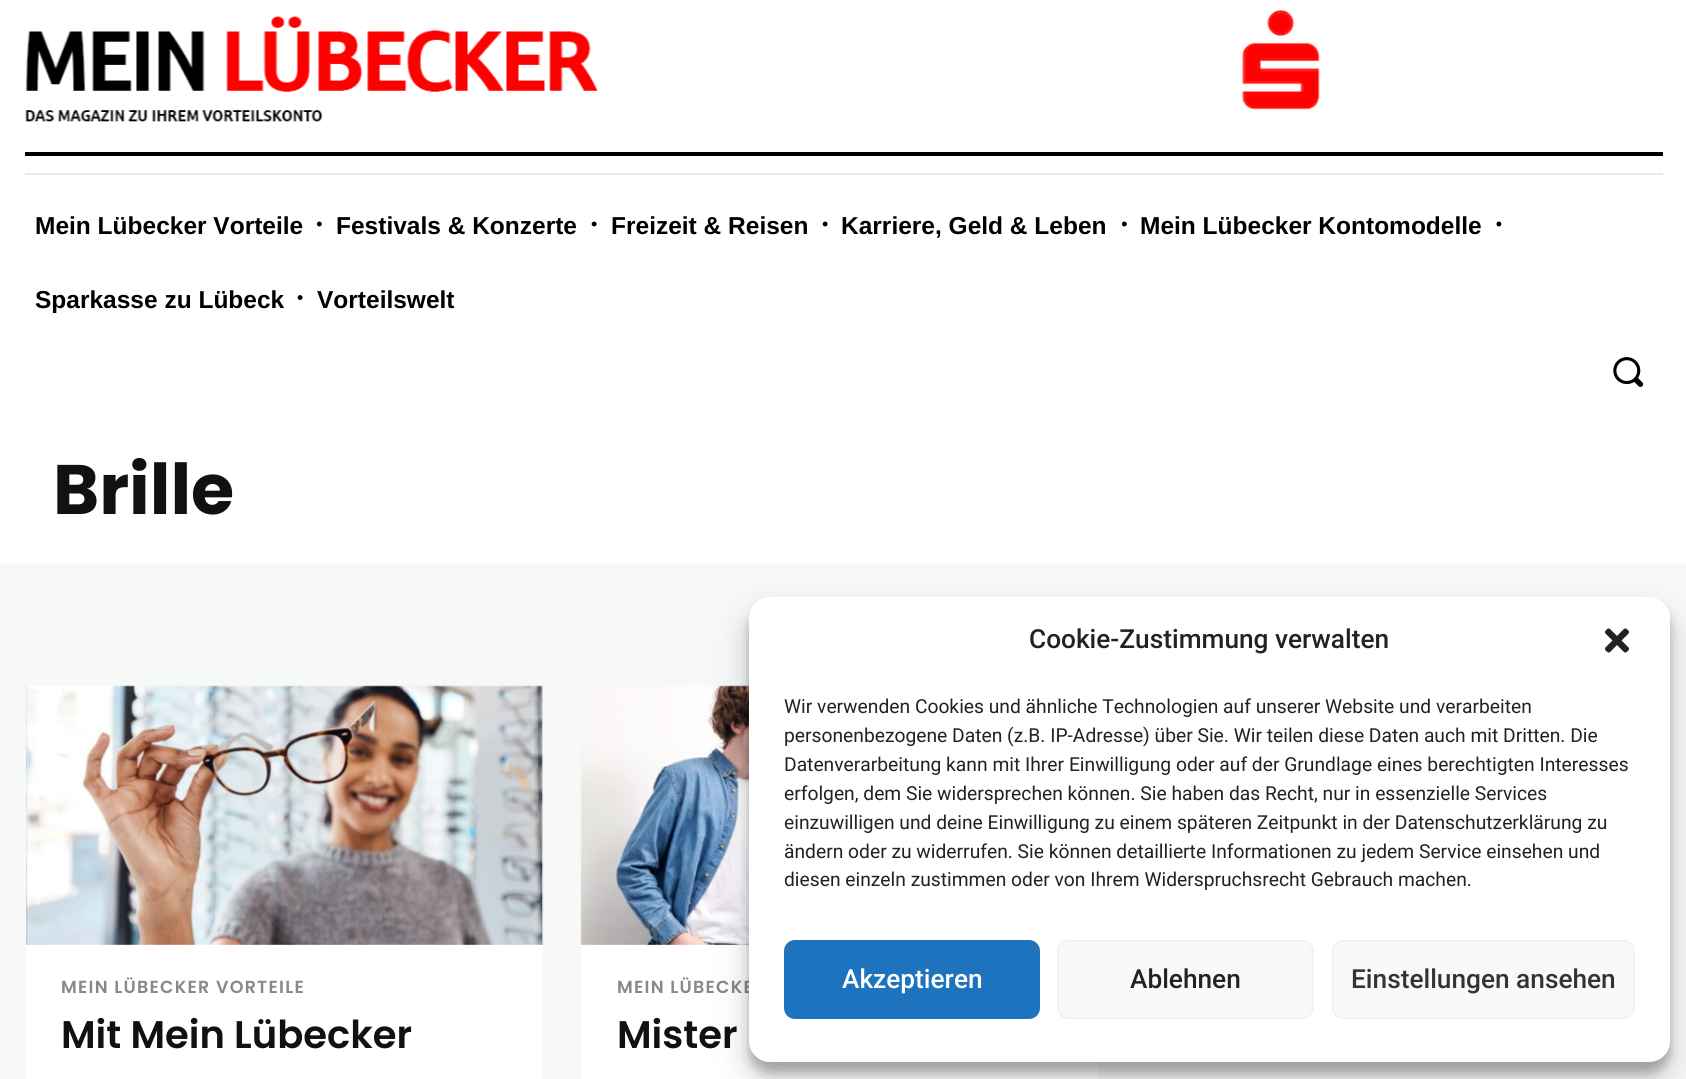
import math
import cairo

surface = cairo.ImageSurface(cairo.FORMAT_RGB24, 1686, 1079)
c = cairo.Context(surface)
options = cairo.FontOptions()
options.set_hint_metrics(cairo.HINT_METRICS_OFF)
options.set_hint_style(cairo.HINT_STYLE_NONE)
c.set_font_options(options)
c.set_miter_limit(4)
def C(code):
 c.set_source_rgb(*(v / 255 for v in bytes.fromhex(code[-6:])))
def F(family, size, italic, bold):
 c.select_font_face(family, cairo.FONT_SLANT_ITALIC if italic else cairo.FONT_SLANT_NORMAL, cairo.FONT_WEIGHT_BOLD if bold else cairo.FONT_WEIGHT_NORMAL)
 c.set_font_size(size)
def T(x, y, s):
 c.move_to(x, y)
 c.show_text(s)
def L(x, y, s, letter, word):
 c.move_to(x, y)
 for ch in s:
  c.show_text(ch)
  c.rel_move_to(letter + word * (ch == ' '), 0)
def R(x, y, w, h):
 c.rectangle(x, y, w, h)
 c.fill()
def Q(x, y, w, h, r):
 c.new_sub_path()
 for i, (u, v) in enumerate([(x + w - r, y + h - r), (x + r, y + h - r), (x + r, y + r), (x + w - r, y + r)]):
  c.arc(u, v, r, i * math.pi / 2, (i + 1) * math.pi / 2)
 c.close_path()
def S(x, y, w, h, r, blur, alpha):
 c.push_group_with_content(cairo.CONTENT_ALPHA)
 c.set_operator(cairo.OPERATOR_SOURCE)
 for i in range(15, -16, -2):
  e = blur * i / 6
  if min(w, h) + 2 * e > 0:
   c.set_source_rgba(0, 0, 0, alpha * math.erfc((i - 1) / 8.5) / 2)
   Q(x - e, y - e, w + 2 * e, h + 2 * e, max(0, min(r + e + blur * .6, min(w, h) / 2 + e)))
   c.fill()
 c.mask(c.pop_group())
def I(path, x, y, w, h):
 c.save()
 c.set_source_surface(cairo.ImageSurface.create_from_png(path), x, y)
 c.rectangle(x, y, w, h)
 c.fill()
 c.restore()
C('f7f8f8')
c.paint()
C('ffffff')
R(0,0,1686,564)
I('1.png',25,9,1295,113)
C('000000')
R(25,152,1638,4)
C('ebebeb')
R(25,173,1638,2)
F('Liberation Sans',24.5,0,1)
C('000000')
T(35,234,'Mein Lübecker Vorteile')
I('2.png',317,221,5,6)
T(336,234,'Festivals & Konzerte')
I('3.png',591,221,6,6)
T(611,234,'Freizeit & Reisen')
I('3.png',822,221,6,6)
T(841,234,'Karriere, Geld & Leben')
I('2.png',1122,221,5,6)
T(1140,234,'Mein Lübecker Kontomodelle')
I('4.png',1496,221,6,6)
T(35,308,'Sparkasse zu Lübeck')
I('5.png',297,295,6,5)
T(317,308,'Vorteilswelt')
I('6.png',1613,357,31,30)
F('Poppins',70,0,1)
C('111111')
T(53,514,'Brille')
I('7.png',26,685,518,260)
C('ffffff')
R(26,945,517,134)
F('Poppins SemiBold',17.5,0,0)
C('888888')
L(61,993,'MEIN LÜBECKER VORTEILE',1.25,0)
F('Poppins SemiBold',38.5,0,0)
C('111111')
T(61,1048,'Mit Mein Lübecker')
I('8.png',580,685,169,260)
C('ffffff')
R(581,945,518,134)
F('Poppins SemiBold',17.5,0,0)
C('888888')
L(617,993,'MEIN LÜBECKE',1.25,0)
F('Poppins SemiBold',38.5,0,0)
C('111111')
T(617,1048,'Mister')
C('000000')
S(749,607,921,466,21,5,.23)
S(749,614,921,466,21,17.5,.19)
C('ffffff')
Q(749,597,921,465,21)
c.fill()
F('Roboto Medium',26.25,0,0)
C('222222')
T(1029,648,'Cookie-Zustimmung verwalten')
I('9.png',1605,628,24,25)
F('Roboto',19.25,0,0)
T(784,713,'Wir verwenden Cookies und ähnliche Technologien auf unserer Website und verarbeiten')
T(784,742,'personenbezogene Daten (z.B. IP-Adresse) über Sie. Wir teilen diese Daten auch mit Dritten. Die')
T(784,771,'Datenverarbeitung kann mit Ihrer Einwilligung oder auf der Grundlage eines berechtigten Interesses')
T(784,800,'erfolgen, dem Sie widersprechen können. Sie haben das Recht, nur in essenzielle Services')
T(784,829,'einzuwilligen und deine Einwilligung zu einem späteren Zeitpunkt in der Datenschutzerklärung zu')
T(784,858,'ändern oder zu widerrufen. Sie können detaillierte Informationen zu jedem Service einsehen und')
T(784,886,'diesen einzeln zustimmen oder von Ihrem Widerspruchsrecht Gebrauch machen.')
C('1e73be')
Q(785,941,254,77,10)
c.fill_preserve()
c.stroke()
F('Roboto Medium',26.25,0,0)
C('ffffff')
T(842,988,'Akzeptieren')
C('f9f9f9')
Q(1058,941,255,77,10)
c.fill_preserve()
C('f2f2f2')
c.stroke()
C('222222')
T(1130,988,'Ablehnen')
C('f9f9f9')
Q(1333,941,301,77,10)
c.fill_preserve()
C('f2f2f2')
c.stroke()
C('333333')
T(1351,988,'Einstellungen ansehen')
surface.write_to_png('o.png')
